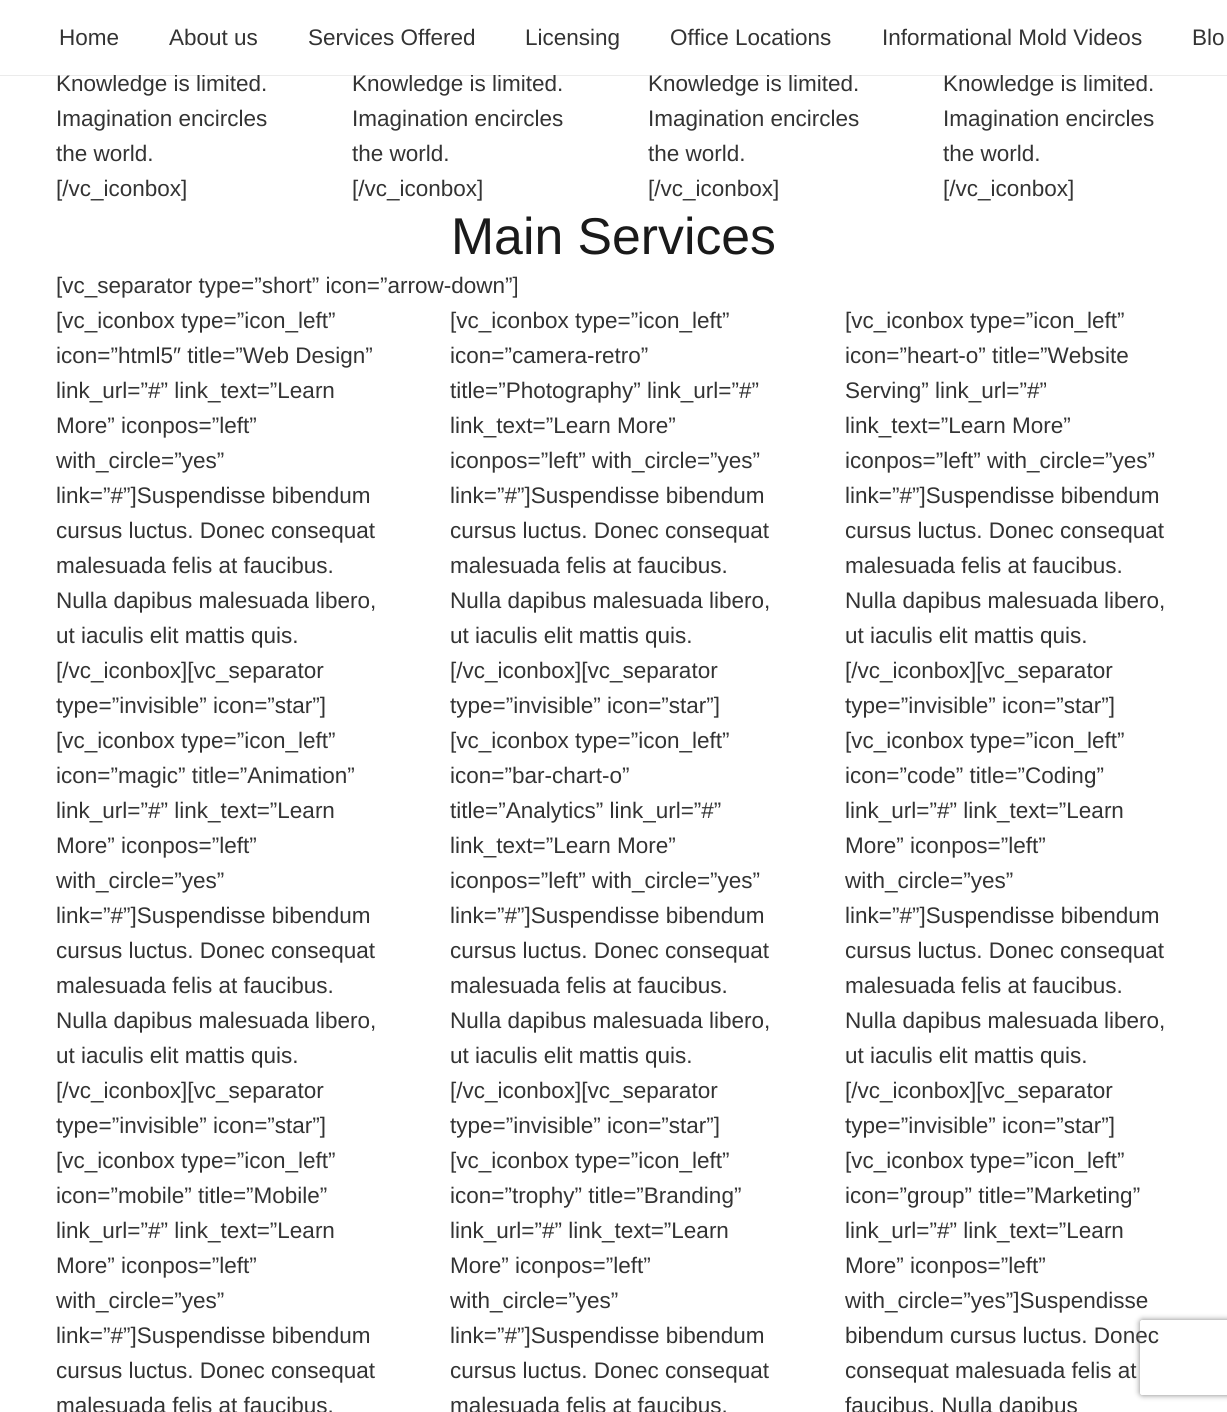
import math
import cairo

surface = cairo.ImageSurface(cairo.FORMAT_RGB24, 1227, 1412)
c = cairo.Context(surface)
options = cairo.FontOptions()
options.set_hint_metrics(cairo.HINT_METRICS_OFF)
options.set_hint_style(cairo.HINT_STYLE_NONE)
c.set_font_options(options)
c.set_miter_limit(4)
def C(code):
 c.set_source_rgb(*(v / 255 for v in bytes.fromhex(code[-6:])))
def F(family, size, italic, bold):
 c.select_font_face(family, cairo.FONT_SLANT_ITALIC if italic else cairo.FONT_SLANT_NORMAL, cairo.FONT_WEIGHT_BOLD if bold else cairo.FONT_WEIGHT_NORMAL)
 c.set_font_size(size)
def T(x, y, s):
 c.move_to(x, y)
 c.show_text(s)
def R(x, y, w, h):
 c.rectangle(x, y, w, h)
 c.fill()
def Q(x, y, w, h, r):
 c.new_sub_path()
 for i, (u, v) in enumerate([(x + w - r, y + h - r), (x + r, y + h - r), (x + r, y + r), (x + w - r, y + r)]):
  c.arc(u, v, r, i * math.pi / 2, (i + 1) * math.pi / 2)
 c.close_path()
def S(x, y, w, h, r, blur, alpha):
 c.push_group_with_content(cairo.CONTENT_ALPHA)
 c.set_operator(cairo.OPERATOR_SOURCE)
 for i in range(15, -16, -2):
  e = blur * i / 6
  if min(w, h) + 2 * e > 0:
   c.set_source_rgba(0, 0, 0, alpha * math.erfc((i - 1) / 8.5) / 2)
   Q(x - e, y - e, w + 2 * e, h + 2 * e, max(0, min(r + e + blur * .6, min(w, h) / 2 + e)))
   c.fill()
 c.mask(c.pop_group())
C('ffffff')
c.paint()
c.set_source_rgba(0,0,0,0.08)
c.new_path()
c.move_to(0,75)
c.line_to(0,76)
c.line_to(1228,76)
c.line_to(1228,1)
c.line_to(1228,75)
c.close_path()
c.fill()
F('Liberation Sans',22.5,0,0)
C('333333')
T(56,91,'Knowledge is limited.')
T(352,91,'Knowledge is limited.')
T(648,91,'Knowledge is limited.')
T(943,91,'Knowledge is limited.')
C('ffffff')
R(114,74,1033,1)
C('333333')
T(59,45,'Home')
T(169,45,'About us')
T(308,45,'Services Offered')
T(525,45,'Licensing')
T(670,45,'Office Locations')
T(882,45,'Informational Mold Videos')
T(1192,45,'Blo')
T(56,126,'Imagination encircles')
T(56,161,'the world.')
T(56,196,'[/vc_iconbox]')
T(352,126,'Imagination encircles')
T(352,161,'the world.')
T(352,196,'[/vc_iconbox]')
T(648,126,'Imagination encircles')
T(648,161,'the world.')
T(648,196,'[/vc_iconbox]')
T(943,126,'Imagination encircles')
T(943,161,'the world.')
T(943,196,'[/vc_iconbox]')
F('Liberation Sans',51.75,0,0)
C('1a1a1a')
T(451,254,'Main Services')
F('Liberation Sans',22.5,0,0)
C('333333')
T(56,293,'[vc_separator type=”short” icon=”arrow-down”]')
T(56,328,'[vc_iconbox type=”icon_left”')
T(56,363,'icon=”html5″ title=”Web Design”')
T(56,398,'link_url=”#” link_text=”Learn')
T(56,433,'More” iconpos=”left”')
T(56,468,'with_circle=”yes”')
T(56,503,'link=”#”]Suspendisse bibendum')
T(56,538,'cursus luctus. Donec consequat')
T(56,573,'malesuada felis at faucibus.')
T(56,608,'Nulla dapibus malesuada libero,')
T(56,643,'ut iaculis elit mattis quis.')
T(56,678,'[/vc_iconbox][vc_separator')
T(56,713,'type=”invisible” icon=”star”]')
T(56,748,'[vc_iconbox type=”icon_left”')
T(56,783,'icon=”magic” title=”Animation”')
T(56,818,'link_url=”#” link_text=”Learn')
T(56,853,'More” iconpos=”left”')
T(56,888,'with_circle=”yes”')
T(56,923,'link=”#”]Suspendisse bibendum')
T(56,958,'cursus luctus. Donec consequat')
T(56,993,'malesuada felis at faucibus.')
T(56,1028,'Nulla dapibus malesuada libero,')
T(56,1063,'ut iaculis elit mattis quis.')
T(56,1098,'[/vc_iconbox][vc_separator')
T(56,1133,'type=”invisible” icon=”star”]')
T(56,1168,'[vc_iconbox type=”icon_left”')
T(56,1203,'icon=”mobile” title=”Mobile”')
T(56,1238,'link_url=”#” link_text=”Learn')
T(56,1273,'More” iconpos=”left”')
T(56,1308,'with_circle=”yes”')
T(56,1343,'link=”#”]Suspendisse bibendum')
T(56,1378,'cursus luctus. Donec consequat')
T(56,1413,'malesuada felis at faucibus.')
T(450,328,'[vc_iconbox type=”icon_left”')
T(450,363,'icon=”camera-retro”')
T(450,398,'title=”Photography” link_url=”#”')
T(450,433,'link_text=”Learn More”')
T(450,468,'iconpos=”left” with_circle=”yes”')
T(450,503,'link=”#”]Suspendisse bibendum')
T(450,538,'cursus luctus. Donec consequat')
T(450,573,'malesuada felis at faucibus.')
T(450,608,'Nulla dapibus malesuada libero,')
T(450,643,'ut iaculis elit mattis quis.')
T(450,678,'[/vc_iconbox][vc_separator')
T(450,713,'type=”invisible” icon=”star”]')
T(450,748,'[vc_iconbox type=”icon_left”')
T(450,783,'icon=”bar-chart-o”')
T(450,818,'title=”Analytics” link_url=”#”')
T(450,853,'link_text=”Learn More”')
T(450,888,'iconpos=”left” with_circle=”yes”')
T(450,923,'link=”#”]Suspendisse bibendum')
T(450,958,'cursus luctus. Donec consequat')
T(450,993,'malesuada felis at faucibus.')
T(450,1028,'Nulla dapibus malesuada libero,')
T(450,1063,'ut iaculis elit mattis quis.')
T(450,1098,'[/vc_iconbox][vc_separator')
T(450,1133,'type=”invisible” icon=”star”]')
T(450,1168,'[vc_iconbox type=”icon_left”')
T(450,1203,'icon=”trophy” title=”Branding”')
T(450,1238,'link_url=”#” link_text=”Learn')
T(450,1273,'More” iconpos=”left”')
T(450,1308,'with_circle=”yes”')
T(450,1343,'link=”#”]Suspendisse bibendum')
T(450,1378,'cursus luctus. Donec consequat')
T(450,1413,'malesuada felis at faucibus.')
T(845,328,'[vc_iconbox type=”icon_left”')
T(845,363,'icon=”heart-o” title=”Website')
T(845,398,'Serving” link_url=”#”')
T(845,433,'link_text=”Learn More”')
T(845,468,'iconpos=”left” with_circle=”yes”')
T(845,503,'link=”#”]Suspendisse bibendum')
T(845,538,'cursus luctus. Donec consequat')
T(845,573,'malesuada felis at faucibus.')
T(845,608,'Nulla dapibus malesuada libero,')
T(845,643,'ut iaculis elit mattis quis.')
T(845,678,'[/vc_iconbox][vc_separator')
T(845,713,'type=”invisible” icon=”star”]')
T(845,748,'[vc_iconbox type=”icon_left”')
T(845,783,'icon=”code” title=”Coding”')
T(845,818,'link_url=”#” link_text=”Learn')
T(845,853,'More” iconpos=”left”')
T(845,888,'with_circle=”yes”')
T(845,923,'link=”#”]Suspendisse bibendum')
T(845,958,'cursus luctus. Donec consequat')
T(845,993,'malesuada felis at faucibus.')
T(845,1028,'Nulla dapibus malesuada libero,')
T(845,1063,'ut iaculis elit mattis quis.')
T(845,1098,'[/vc_iconbox][vc_separator')
T(845,1133,'type=”invisible” icon=”star”]')
T(845,1168,'[vc_iconbox type=”icon_left”')
T(845,1203,'icon=”group” title=”Marketing”')
T(845,1238,'link_url=”#” link_text=”Learn')
T(845,1273,'More” iconpos=”left”')
T(845,1308,'with_circle=”yes”]Suspendisse')
T(845,1343,'bibendum cursus luctus. Donec')
T(845,1378,'consequat malesuada felis at')
T(845,1413,'faucibus. Nulla dapibus')
c.save()
c.set_fill_rule(cairo.FILL_RULE_EVEN_ODD)
c.new_path()
c.move_to(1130,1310)
c.line_to(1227,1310)
c.line_to(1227,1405)
c.line_to(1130,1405)
c.close_path()
c.move_to(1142.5,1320)
c.line_to(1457.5,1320)
c.curve_to(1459,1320,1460,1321,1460,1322.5)
c.line_to(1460,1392.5)
c.curve_to(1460,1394,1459,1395,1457.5,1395)
c.line_to(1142.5,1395)
c.curve_to(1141,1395,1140,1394,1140,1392.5)
c.line_to(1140,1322.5)
c.curve_to(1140,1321,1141,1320,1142.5,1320)
c.close_path()
c.clip()
C('808080')
S(1140,1320,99,75,2.5,3,1)
c.restore()
surface.write_to_png('o.png')
